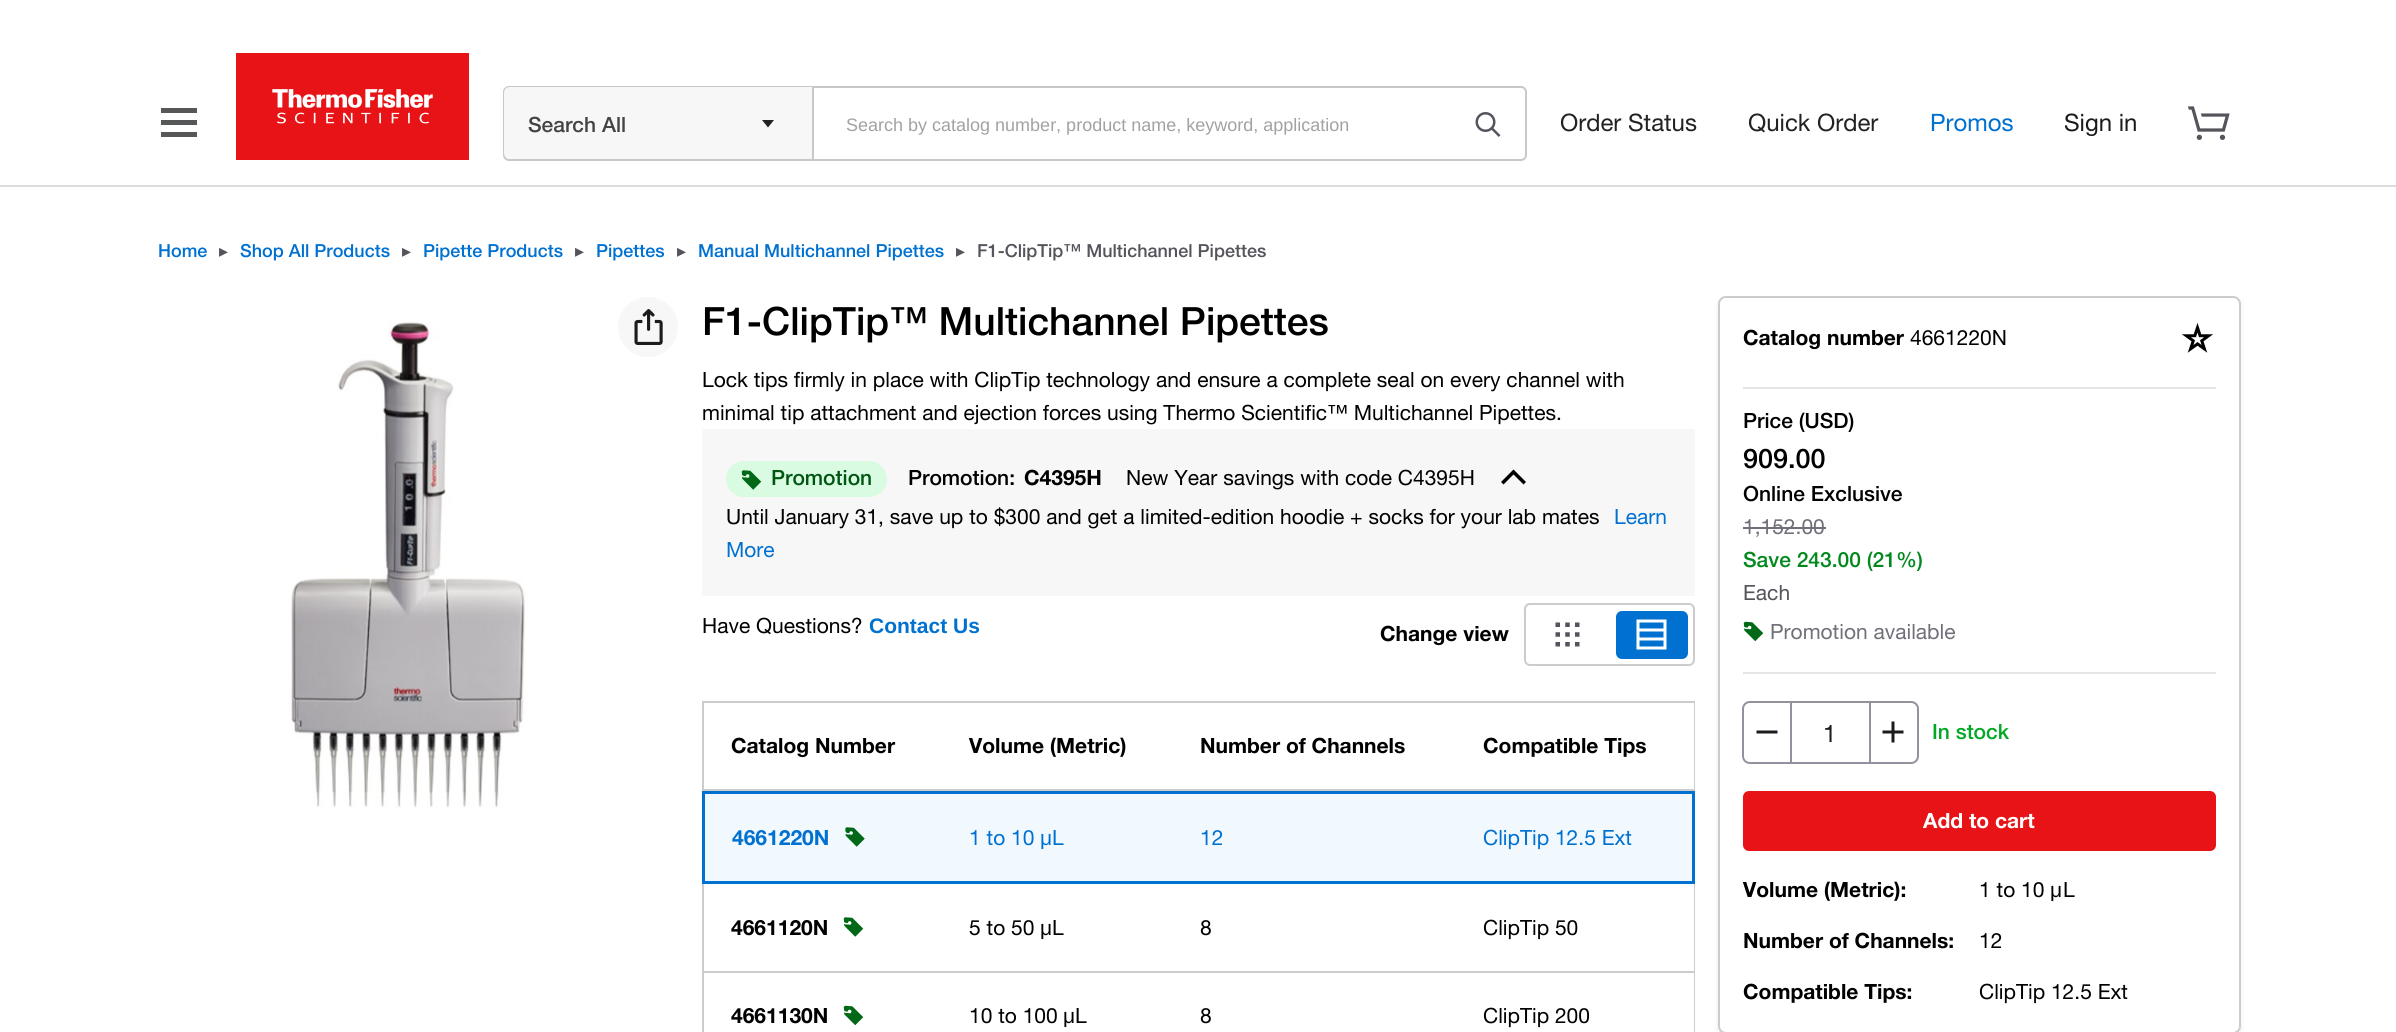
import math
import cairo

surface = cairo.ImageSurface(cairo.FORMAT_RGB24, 2396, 1032)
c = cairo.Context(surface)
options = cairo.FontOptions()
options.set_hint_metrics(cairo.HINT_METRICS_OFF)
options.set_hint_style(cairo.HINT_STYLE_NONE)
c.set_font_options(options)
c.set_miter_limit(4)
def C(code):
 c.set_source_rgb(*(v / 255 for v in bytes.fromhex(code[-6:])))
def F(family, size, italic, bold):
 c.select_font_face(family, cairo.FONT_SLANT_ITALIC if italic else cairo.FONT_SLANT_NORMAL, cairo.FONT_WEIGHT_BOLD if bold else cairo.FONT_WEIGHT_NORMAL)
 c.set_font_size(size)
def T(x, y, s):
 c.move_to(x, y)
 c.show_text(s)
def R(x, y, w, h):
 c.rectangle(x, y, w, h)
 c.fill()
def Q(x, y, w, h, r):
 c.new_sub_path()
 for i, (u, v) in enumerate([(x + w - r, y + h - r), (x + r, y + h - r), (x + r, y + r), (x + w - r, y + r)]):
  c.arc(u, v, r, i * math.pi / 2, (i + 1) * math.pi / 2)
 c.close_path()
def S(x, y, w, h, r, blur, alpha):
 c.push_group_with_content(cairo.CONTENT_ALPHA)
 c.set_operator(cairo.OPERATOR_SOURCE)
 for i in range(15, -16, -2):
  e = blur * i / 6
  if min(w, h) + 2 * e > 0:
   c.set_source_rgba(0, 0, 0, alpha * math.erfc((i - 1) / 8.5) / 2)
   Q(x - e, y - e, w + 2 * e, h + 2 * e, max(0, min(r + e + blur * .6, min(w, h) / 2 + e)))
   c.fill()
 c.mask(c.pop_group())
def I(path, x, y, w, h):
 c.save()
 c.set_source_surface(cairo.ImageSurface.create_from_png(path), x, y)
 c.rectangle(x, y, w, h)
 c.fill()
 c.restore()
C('ffffff')
c.paint()
C('dcdcdc')
R(0,185,2396,2)
C('555759')
R(161,120,36,5)
R(161,108,36,5)
R(161,132,36,5)
I('1.png',236,53,233,107)
Q(504,87,1022,73,5)
C('c9c8c8')
c.stroke()
C('f7f7f7')
c.new_path()
c.move_to(510,87)
c.line_to(812,87)
c.line_to(812,159)
c.line_to(510,159)
c.curve_to(506.5,159,504,156.5,504,153)
c.line_to(504,93)
c.curve_to(504,89.5,506.5,87,510,87)
c.close_path()
c.fill()
C('c9c8c8')
R(812,87,2,72)
F('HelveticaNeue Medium',21,0,0)
C('444444')
T(528,132,'Search All')
C('222222')
c.new_path()
c.move_to(762,120)
c.line_to(774,120)
c.line_to(768,127.5)
c.close_path()
c.fill()
F('Liberation Sans',18,0,0)
C('a2a2a2')
T(846,131,'Search by catalog number, product name, keyword, application')
I('2.png',1475,112,26,25)
F('HelveticaNeue',24,0,0)
C('222222')
T(1560,131,'Order Status')
T(1748,131,'Quick Order')
C('0071d0')
T(1930,131,'Promos')
C('1b1b1d')
T(2064,131,'Sign in')
I('3.png',2187,106,43,34)
F('HelveticaNeue Medium',18,0,0)
C('0071d0')
T(158,257,'Home')
F('DejaVu Sans',18,0,0)
C('54545c')
T(219,257,'▸')
F('HelveticaNeue Medium',18,0,0)
C('0071d0')
T(240,257,'Shop All Products')
F('DejaVu Sans',18,0,0)
C('54545c')
T(402,257,'▸')
F('HelveticaNeue Medium',18,0,0)
C('0071d0')
T(423,257,'Pipette Products')
F('DejaVu Sans',18,0,0)
C('54545c')
T(575,257,'▸')
F('HelveticaNeue Medium',18,0,0)
C('0071d0')
T(596,257,'Pipettes')
F('DejaVu Sans',18,0,0)
C('54545c')
T(677,257,'▸')
F('HelveticaNeue Medium',18,0,0)
C('0071d0')
T(698,257,'Manual Multichannel Pipettes')
F('DejaVu Sans',18,0,0)
C('54545c')
T(956,257,'▸')
F('HelveticaNeue Medium',18,0,0)
T(977,257,'F1-ClipTip™ Multichannel Pipettes')
I('4.png',291,322,235,487)
I('5.png',618,297,60,60)
F('HelveticaNeue Medium',39,0,0)
C('000000')
T(702,335,'F1-ClipTip™ Multichannel Pipettes')
F('HelveticaNeue',21,0,0)
T(702,387,'Lock tips firmly in place with ClipTip technology and ensure a complete seal on every channel with')
T(702,420,'minimal tip attachment and ejection forces using Thermo Scientific™ Multichannel Pipettes.')
C('f7f7f7')
R(702,429,993,167)
C('d9fbe2')
Q(726,461,161,36,18)
c.fill()
I('6.png',741,470,21,20)
F('HelveticaNeue Medium',21,0,0)
C('005512')
T(771,485,'Promotion')
C('000000')
T(908,485,'Promotion:')
F('HelveticaNeue',21,0,1)
T(1024,485,'C4395H')
F('HelveticaNeue',21,0,0)
T(1126,485,'New Year savings with code C4395H')
c.set_fill_rule(cairo.FILL_RULE_EVEN_ODD)
c.new_path()
c.move_to(1523.5,484.5)
c.line_to(1526,482)
c.line_to(1513.5,469.5)
c.line_to(1501,482)
c.line_to(1503.5,484.5)
c.line_to(1513.5,474.5)
c.close_path()
c.fill()
T(726,524,'Until January 31, save up to $300 and get a limited-edition hoodie + socks for your lab mates')
C('0071d0')
T(1614,524,'Learn')
T(726,557,'More')
C('000000')
T(702,633,'Have Questions?')
F('Liberation Sans',21,0,1)
C('0071d0')
T(869,633,'Contact Us')
F('HelveticaNeue',21,0,1)
C('000000')
T(1380,641,'Change view')
Q(1525,604,169,61,5)
C('cccccc')
c.stroke()
I('7.png',1555,622,25,25)
C('0071d0')
Q(1616,611,72,48,6)
c.fill()
C('ffffff')
c.new_path()
c.move_to(1636.5,619.5)
c.line_to(1666.5,619.5)
c.line_to(1666.5,649.5)
c.line_to(1636.5,649.5)
c.close_path()
c.move_to(1639.5,628.5)
c.line_to(1663.5,628.5)
c.line_to(1663.5,622.5)
c.line_to(1639.5,622.5)
c.close_path()
c.move_to(1663.5,637.5)
c.line_to(1639.5,637.5)
c.line_to(1639.5,631.5)
c.line_to(1663.5,631.5)
c.close_path()
c.move_to(1663.5,646.5)
c.line_to(1639.5,646.5)
c.line_to(1639.5,640.5)
c.line_to(1663.5,640.5)
c.close_path()
c.fill()
C('cccccc')
R(702,701,993,2)
R(702,789,993,2)
R(702,701,2,90)
C('000000')
T(731,753,'Catalog Number')
T(969,753,'Volume (Metric)')
T(1200,753,'Number of Channels')
C('cccccc')
R(1694,701,1,90)
C('000000')
T(1483,753,'Compatible Tips')
C('f1f9ff')
R(705,794,987,87)
C('0071d0')
R(702,791,993,3)
R(702,881,753,3)
R(702,791,3,93)
T(732,845,'4661220N')
I('8.png',845,827,20,20)
F('HelveticaNeue',21,0,0)
T(969,845,'1 to 10')
F('Liberation Sans',21,0,0)
T(1040,845,'μ')
F('HelveticaNeue',21,0,0)
T(1052,845,'L')
T(1200,845,'12')
R(1692,791,3,93)
R(1455,881,240,3)
T(1483,845,'ClipTip 12.5 Ext')
C('cccccc')
R(702,971,753,2)
R(702,884,2,148)
F('HelveticaNeue',21,0,1)
C('000000')
T(731,935,'4661120N')
I('9.png',843,917,21,20)
F('HelveticaNeue',21,0,0)
T(969,935,'5 to 50')
F('Liberation Sans',21,0,0)
T(1040,935,'μ')
F('HelveticaNeue',21,0,0)
T(1052,935,'L')
T(1200,935,'8')
C('cccccc')
R(1694,884,1,88)
R(1455,971,240,2)
C('000000')
T(1483,935,'ClipTip 50')
F('HelveticaNeue',21,0,1)
T(731,1023,'4661130N')
I('10.png',843,1005,21,21)
F('HelveticaNeue',21,0,0)
T(969,1023,'10 to 100')
F('Liberation Sans',21,0,0)
T(1063,1023,'μ')
F('HelveticaNeue',21,0,0)
T(1075,1023,'L')
T(1200,1023,'8')
C('cccccc')
R(1694,972,1,60)
C('000000')
T(1483,1023,'ClipTip 200')
c.save()
c.new_path()
c.move_to(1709,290)
c.line_to(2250,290)
c.line_to(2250,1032)
c.line_to(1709,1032)
c.close_path()
c.move_to(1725,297)
c.line_to(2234,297)
c.curve_to(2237.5,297,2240,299.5,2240,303)
c.line_to(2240,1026)
c.curve_to(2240,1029.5,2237.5,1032,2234,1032)
c.line_to(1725,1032)
c.curve_to(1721.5,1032,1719,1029.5,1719,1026)
c.line_to(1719,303)
c.curve_to(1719,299.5,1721.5,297,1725,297)
c.close_path()
c.clip()
C('000000')
S(1719,300,521,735,6,3,.1)
c.restore()
C('e5e5e5')
R(1743,387,473,2)
C('70707a')
R(1743,527,83,2)
I('10.png',1743,621,21,21)
C('e5e5e5')
R(1743,672,473,2)
c.new_path()
c.move_to(1750,702)
c.line_to(1792,702)
c.line_to(1792,763)
c.line_to(1750,763)
c.curve_to(1746,763,1743,760,1743,756)
c.line_to(1743,709)
c.curve_to(1743,705,1746,702,1750,702)
c.close_path()
C('92929e')
c.stroke()
c.new_path()
c.move_to(1869,702)
c.line_to(1911,702)
c.curve_to(1915,702,1918,705,1918,709)
c.line_to(1918,756)
c.curve_to(1918,760,1915,763,1911,763)
c.line_to(1869,763)
c.close_path()
c.stroke()
Q(1719,297,521,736,7)
C('cccccc')
c.stroke()
F('HelveticaNeue',21,0,1)
C('000000')
T(1743,345,'Catalog number')
F('HelveticaNeue',21,0,0)
T(1910,345,'4661220N')
I('11.png',2182,323,31,30)
F('HelveticaNeue Medium',21,0,0)
T(1743,428,'Price (USD)')
F('HelveticaNeue Medium',27,0,0)
T(1743,468,'909.00')
F('HelveticaNeue Medium',21,0,0)
T(1743,501,'Online Exclusive')
F('HelveticaNeue',21,0,0)
C('70707a')
T(1743,534,'1,152.00')
F('HelveticaNeue Medium',21,0,0)
C('01891e')
T(1743,567,'Save 243.00 (21%)')
F('HelveticaNeue',21,0,0)
C('54545c')
T(1743,600,'Each')
C('70707a')
T(1770,639,'Promotion available')
C('1b1b1d')
R(1757,731,20,2)
c.new_path()
c.move_to(1777,731)
c.line_to(1777,733)
c.line_to(1757,733)
c.line_to(1757,731)
c.close_path()
c.set_line_width(1)
c.stroke()
C('ffffff')
R(1792,703,77,59)
c.rectangle(1791,702,79,61)
C('92929e')
c.set_line_width(2)
c.stroke()
F('HelveticaNeue',24,0,0)
C('1b1b1d')
T(1823,742,'1')
I('12.png',1882,721,22,22)
F('HelveticaNeue Medium',21,0,0)
C('00a824')
T(1932,739,'In stock')
C('e71316')
Q(1743,791,473,60,6)
c.fill()
F('HelveticaNeue',21,0,1)
C('ffffff')
T(1923,828,'Add to cart')
C('000000')
T(1743,897,'Volume (Metric):')
F('HelveticaNeue',21,0,0)
T(1979,897,'1 to 10')
F('Liberation Sans',21,0,0)
T(2050,897,'μ')
F('HelveticaNeue',21,0,0)
T(2063,897,'L')
F('HelveticaNeue',21,0,1)
T(1743,948,'Number of Channels:')
F('HelveticaNeue',21,0,0)
T(1979,948,'12')
F('HelveticaNeue',21,0,1)
T(1743,999,'Compatible Tips:')
F('HelveticaNeue',21,0,0)
T(1979,999,'ClipTip 12.5 Ext')
surface.write_to_png('o.png')
